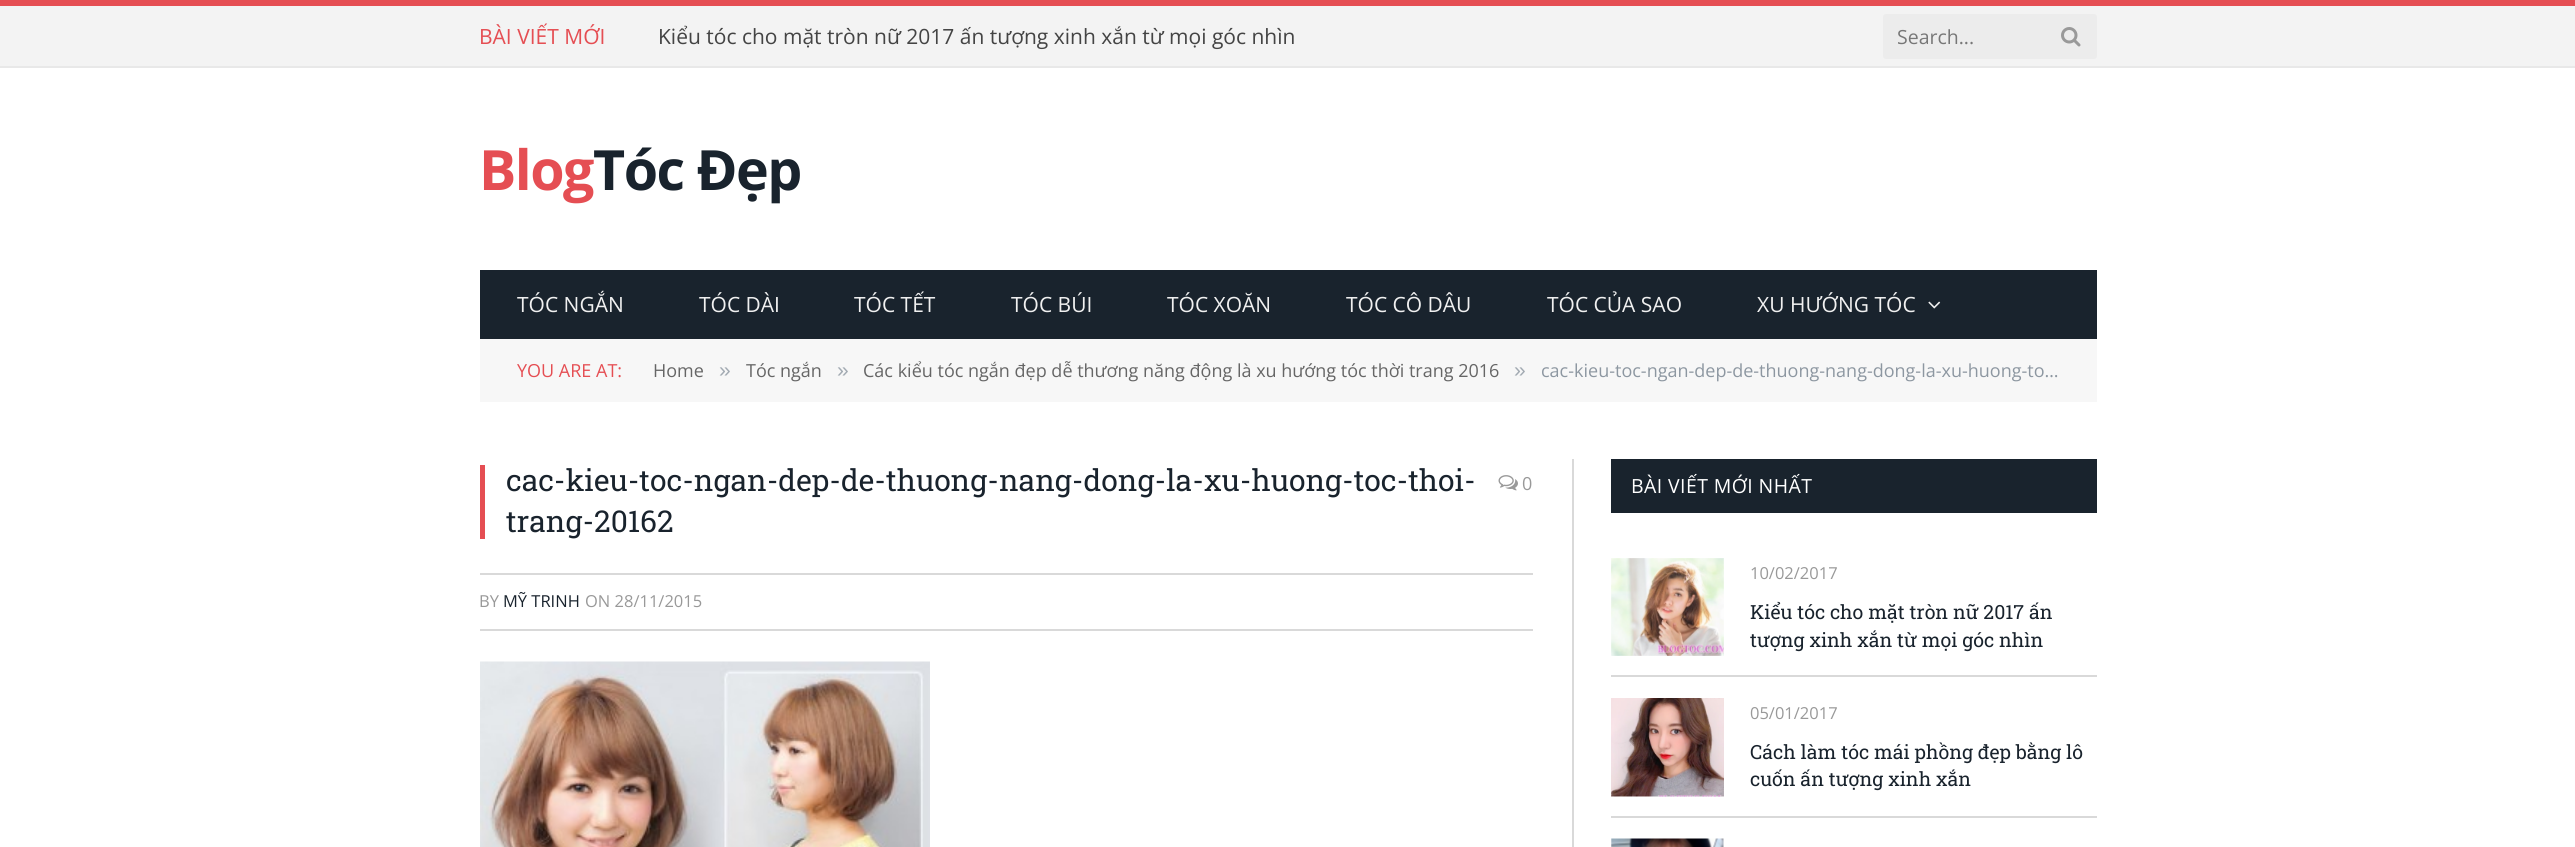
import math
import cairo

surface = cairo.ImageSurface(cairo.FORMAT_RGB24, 2575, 847)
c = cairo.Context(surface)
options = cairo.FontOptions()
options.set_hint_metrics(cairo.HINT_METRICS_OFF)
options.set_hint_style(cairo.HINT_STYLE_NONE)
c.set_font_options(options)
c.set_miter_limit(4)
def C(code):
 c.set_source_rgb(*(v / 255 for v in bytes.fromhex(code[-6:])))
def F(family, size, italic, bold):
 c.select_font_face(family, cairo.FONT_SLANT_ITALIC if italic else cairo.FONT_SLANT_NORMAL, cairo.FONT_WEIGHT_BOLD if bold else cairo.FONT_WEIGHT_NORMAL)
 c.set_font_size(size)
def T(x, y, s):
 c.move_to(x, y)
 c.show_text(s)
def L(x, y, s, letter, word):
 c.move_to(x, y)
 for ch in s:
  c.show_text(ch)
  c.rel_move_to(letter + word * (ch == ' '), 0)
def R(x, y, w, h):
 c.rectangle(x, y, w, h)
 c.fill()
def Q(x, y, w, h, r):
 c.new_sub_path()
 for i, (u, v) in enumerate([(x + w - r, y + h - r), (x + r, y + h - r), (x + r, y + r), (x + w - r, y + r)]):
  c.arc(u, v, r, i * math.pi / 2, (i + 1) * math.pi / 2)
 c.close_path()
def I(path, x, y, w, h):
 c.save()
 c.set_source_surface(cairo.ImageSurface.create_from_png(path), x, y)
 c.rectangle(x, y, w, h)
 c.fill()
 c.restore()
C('ffffff')
c.paint()
C('f3f3f3')
R(0,6,2575,60)
C('e54e53')
R(0,0,2575,6)
C('e8e8e8')
R(0,66,2575,2)
F('Open Sans',21,0,0)
C('e54e53')
T(479,44,'BÀI VIẾT MỚI')
C('444444')
T(658,44,'Kiểu tóc cho mặt tròn nữ 2017 ấn tượng xinh xắn từ mọi góc nhìn')
C('ececec')
Q(1883,14,214,45,3)
c.fill()
F('Open Sans',19.5,0,0)
C('777777')
T(1897,44,'Search...')
I('1.png',2061,27,20,20)
F('Open Sans',55.5,0,1)
C('e54e53')
L(479,190,'Blog',-1.5,0)
C('19232d')
L(593,190,'Tóc Đẹp',-1.5,0)
R(480,270,1617,69)
F('Open Sans',21,0,0)
C('f0f0f0')
T(517,312,'TÓC NGẮN')
T(699,312,'TÓC DÀI')
T(854,312,'TÓC TẾT')
T(1011,312,'TÓC BÚI')
T(1167,312,'TÓC XOĂN')
T(1346,312,'TÓC CÔ DÂU')
T(1547,312,'TÓC CỦA SAO')
T(1757,312,'XU HƯỚNG TÓC')
I('2.png',1928,301,13,8)
C('f7f7f7')
R(480,339,1617,63)
F('Open Sans',18,0,0)
C('e54e53')
T(517,377,'YOU ARE AT:')
C('666666')
T(653,377,'Home')
F('Liberation Sans',21,0,0)
C('a2aab2')
T(719,377,'»')
F('Open Sans',18,0,0)
C('666666')
T(746,377,'Tóc ngắn')
F('Liberation Sans',21,0,0)
C('a2aab2')
T(837,377,'»')
F('Open Sans',18,0,0)
C('666666')
T(863,377,'Các kiểu tóc ngắn đẹp dễ thương năng động là xu hướng tóc thời trang 2016')
F('Liberation Sans',21,0,0)
C('a2aab2')
T(1514,377,'»')
F('Open Sans',18,0,0)
C('8d97a1')
T(1541,377,'cac-kieu-toc-ngan-dep-de-thuong-nang-dong-la-xu-huong-to…')
C('e54e53')
R(480,465,5,74)
F('Roboto Slab',30,0,0)
C('19232d')
T(506,491,'cac-kieu-toc-ngan-dep-de-thuong-nang-dong-la-xu-huong-toc-thoi-')
T(506,532,'trang-20162')
I('3.png',1498,475,20,16)
F('Open Sans',18,0,0)
C('999999')
T(1522,490,'0')
C('d9d9d9')
R(480,573,1053,2)
R(480,629,1053,2)
F('Open Sans',16.5,0,0)
C('999999')
T(479,607,'BY')
C('19232d')
T(503,607,'MỸ TRINH')
C('999999')
T(585,607,'ON 28/11/2015')
I('4.png',480,661,450,186)
C('d9d9d9')
R(1572,459,2,388)
C('19232d')
R(1611,459,486,54)
F('Open Sans',19.5,0,0)
C('ffffff')
L(1631,493,'BÀI VIẾT MỚI NHẤT',.4,0)
I('5.png',1611,558,113,98)
F('Open Sans',16.5,0,0)
C('999999')
T(1750,579,'10/02/2017')
F('Roboto Slab',19.5,0,0)
C('19232d')
T(1750,619,'Kiểu tóc cho mặt tròn nữ 2017 ấn')
T(1750,647,'tượng xinh xắn từ mọi góc nhìn')
C('d9d9d9')
R(1611,675,486,2)
I('6.png',1611,698,113,99)
F('Open Sans',16.5,0,0)
C('999999')
T(1750,719,'05/01/2017')
F('Roboto Slab',19.5,0,0)
C('19232d')
T(1750,759,'Cách làm tóc mái phồng đẹp bằng lô')
T(1750,786,'cuốn ấn tượng xinh xắn')
C('d9d9d9')
R(1611,816,486,2)
I('7.png',1611,838,113,9)
surface.write_to_png('o.png')
